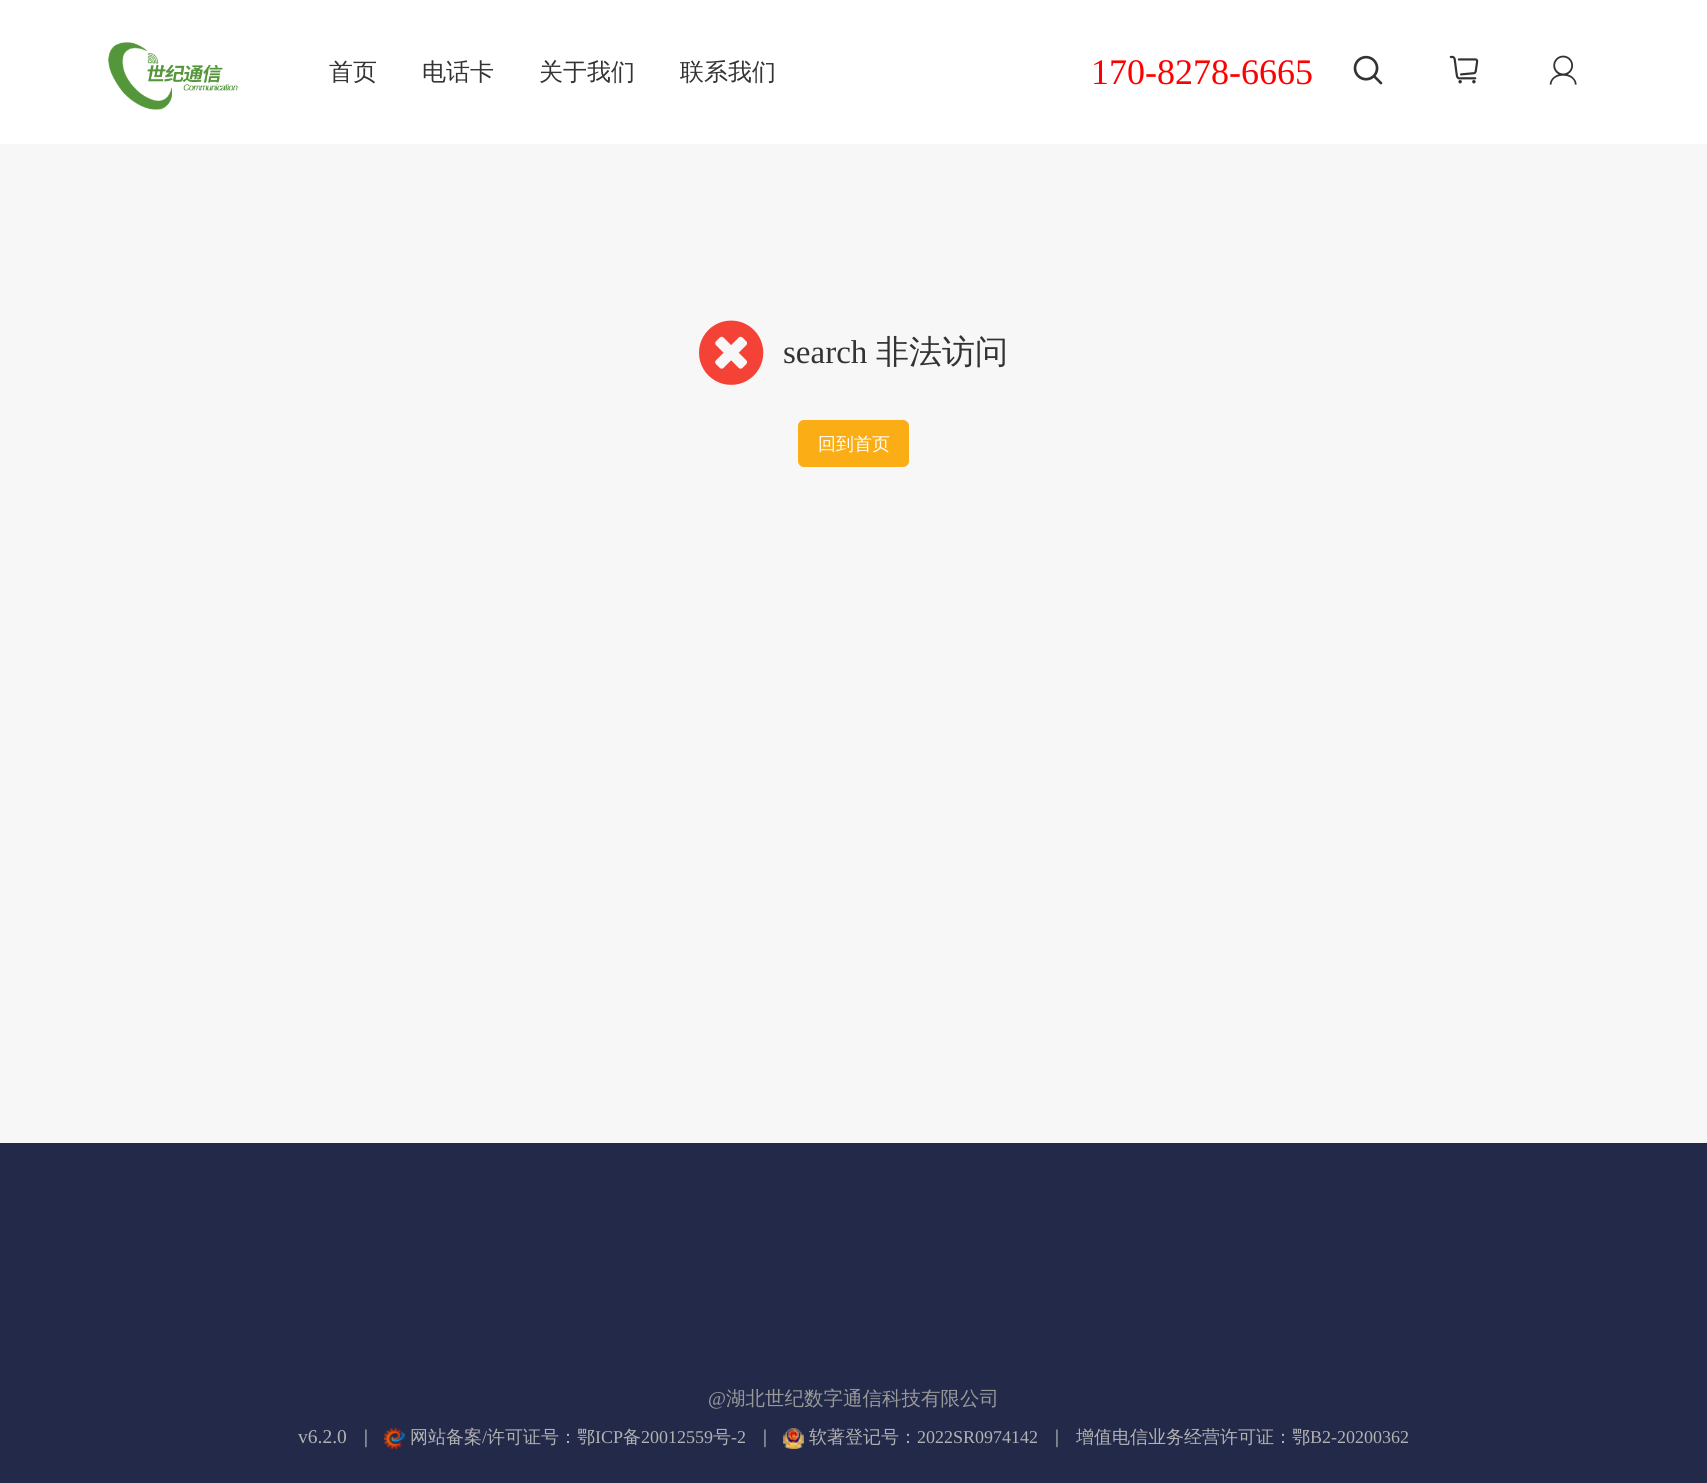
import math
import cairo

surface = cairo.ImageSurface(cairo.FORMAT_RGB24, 1707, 1483)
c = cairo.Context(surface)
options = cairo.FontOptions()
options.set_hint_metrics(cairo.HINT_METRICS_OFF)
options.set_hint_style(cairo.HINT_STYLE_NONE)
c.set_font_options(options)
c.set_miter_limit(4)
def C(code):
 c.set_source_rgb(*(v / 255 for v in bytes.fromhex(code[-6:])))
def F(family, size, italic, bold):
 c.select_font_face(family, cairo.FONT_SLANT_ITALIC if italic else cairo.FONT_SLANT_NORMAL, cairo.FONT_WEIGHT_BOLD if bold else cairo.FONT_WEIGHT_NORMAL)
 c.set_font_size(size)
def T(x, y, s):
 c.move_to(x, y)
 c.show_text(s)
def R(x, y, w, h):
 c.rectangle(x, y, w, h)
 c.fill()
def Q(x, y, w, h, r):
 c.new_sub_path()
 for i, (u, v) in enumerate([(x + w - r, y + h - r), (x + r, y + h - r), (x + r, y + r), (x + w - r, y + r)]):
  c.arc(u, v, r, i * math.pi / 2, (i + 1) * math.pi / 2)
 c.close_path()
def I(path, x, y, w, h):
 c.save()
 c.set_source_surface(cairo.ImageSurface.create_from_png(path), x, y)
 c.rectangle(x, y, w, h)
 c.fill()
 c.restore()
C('f7f7f7')
c.paint()
C('ffffff')
R(0,0,1707,144)
I('1.png',108,42,130,68)
F('WenQuanYi Zen Hei Medium',24,0,0)
C('333333')
T(329,80,'首页')
T(422,80,'电话卡')
T(539,80,'关于我们')
T(680,80,'联系我们')
F('Liberation Serif',36,0,0)
C('ff0000')
T(1091,84,'170-8278-6665')
I('2.png',1353,55,30,30)
I('3.png',1449,55,30,29)
I('4.png',1549,55,28,30)
I('5.png',699,320,65,65)
F('Liberation Serif',33,0,0)
C('333333')
T(783,363,'search')
F('WenQuanYi Zen Hei Medium',33,0,0)
T(876,363,'非法访问')
C('faad14')
Q(799,421,109,45,5)
c.fill_preserve()
c.stroke()
F('WenQuanYi Zen Hei Medium',18,0,0)
C('ffffff')
T(818,450,'回到首页')
C('232949')
R(0,1143,1707,340)
F('Liberation Serif',19.5,0,0)
C('999999')
T(708,1405,'@')
F('WenQuanYi Zen Hei Medium',19.5,0,0)
T(726,1405,'湖北世纪数字通信科技有限公司')
F('Liberation Serif',19.5,0,0)
C('b2b2b2')
T(298,1443,'v6.2.0')
C('d4d4d4')
T(364,1443,'|')
I('6.png',384,1428,21,21)
F('WenQuanYi Zen Hei Medium',18,0,0)
C('b2b2b2')
T(410,1443,'网站备案')
F('Liberation Serif',18,0,0)
T(482,1443,'/')
F('WenQuanYi Zen Hei Medium',18,0,0)
T(487,1443,'许可证号：鄂')
F('Liberation Serif',18,0,0)
T(595,1443,'ICP')
F('WenQuanYi Zen Hei Medium',18,0,0)
T(623,1443,'备')
F('Liberation Serif',18,0,0)
T(641,1443,'20012559')
F('WenQuanYi Zen Hei Medium',18,0,0)
T(713,1443,'号')
F('Liberation Serif',18,0,0)
T(731,1443,'-2')
F('Liberation Serif',19.5,0,0)
C('d4d4d4')
T(763,1443,'|')
I('7.png',783,1428,21,21)
F('WenQuanYi Zen Hei Medium',18,0,0)
C('b2b2b2')
T(809,1443,'软著登记号：')
F('Liberation Serif',18,0,0)
T(917,1443,'2022SR0974142')
F('Liberation Serif',19.5,0,0)
C('d4d4d4')
T(1055,1443,'|')
F('WenQuanYi Zen Hei Medium',18,0,0)
C('b2b2b2')
T(1076,1443,'增值电信业务经营许可证：鄂')
F('Liberation Serif',18,0,0)
T(1310,1443,'B2-20200362')
surface.write_to_png('o.png')
